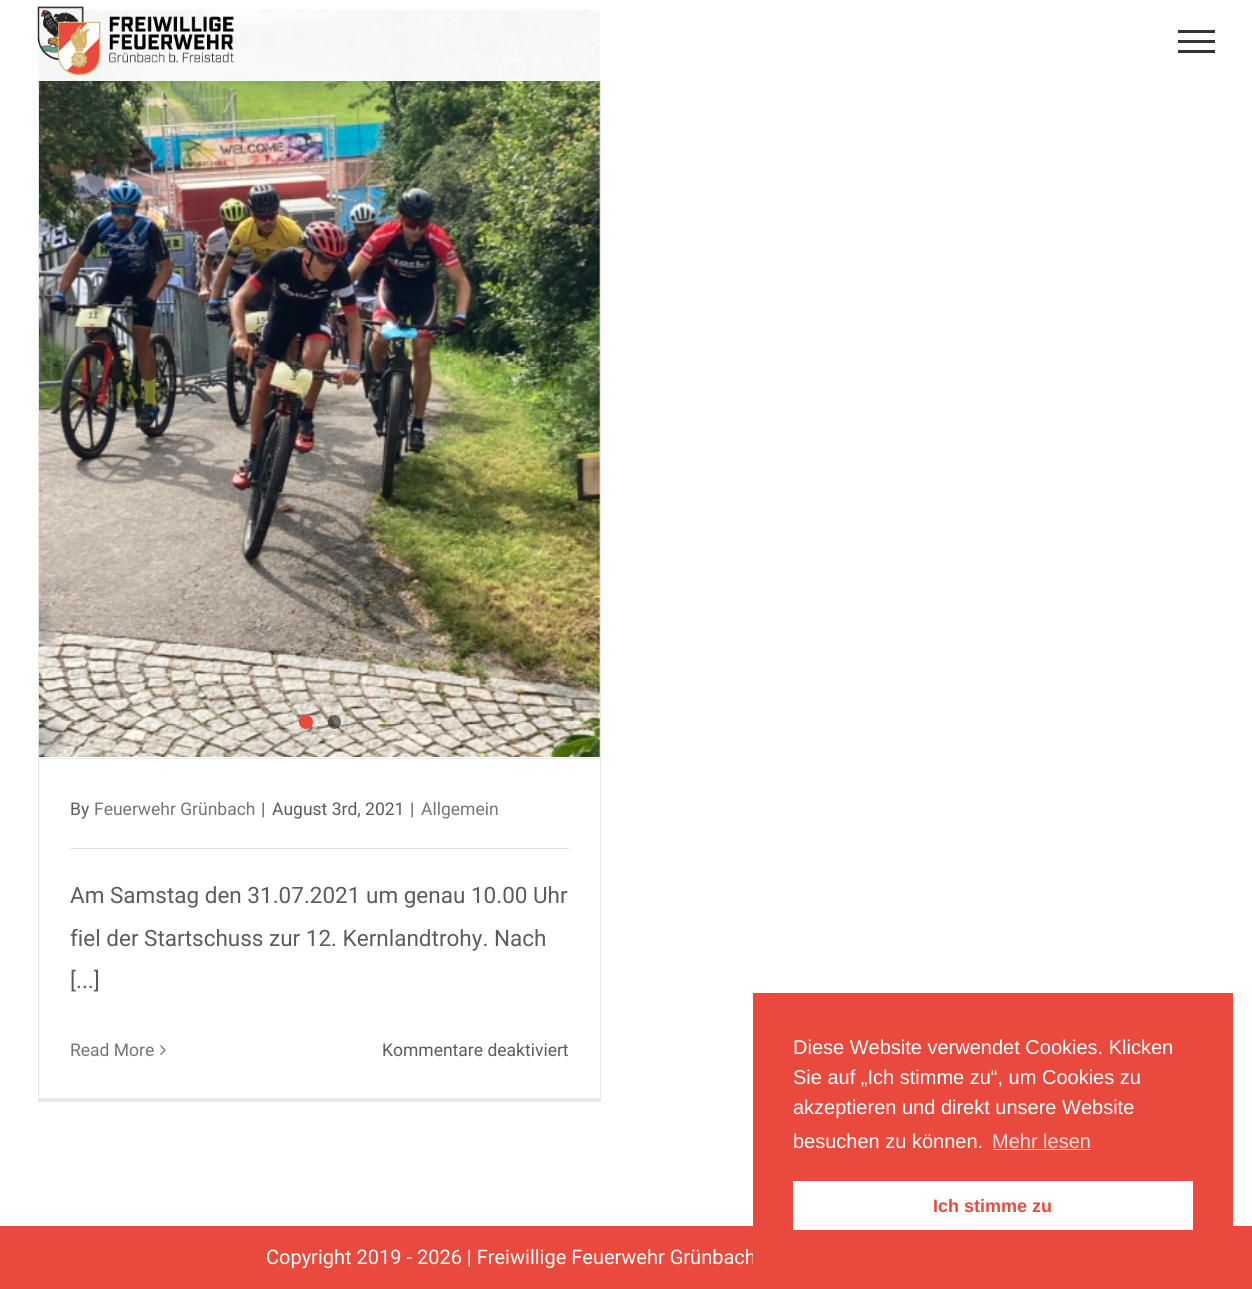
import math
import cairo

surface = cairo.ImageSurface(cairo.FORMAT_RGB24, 1252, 1289)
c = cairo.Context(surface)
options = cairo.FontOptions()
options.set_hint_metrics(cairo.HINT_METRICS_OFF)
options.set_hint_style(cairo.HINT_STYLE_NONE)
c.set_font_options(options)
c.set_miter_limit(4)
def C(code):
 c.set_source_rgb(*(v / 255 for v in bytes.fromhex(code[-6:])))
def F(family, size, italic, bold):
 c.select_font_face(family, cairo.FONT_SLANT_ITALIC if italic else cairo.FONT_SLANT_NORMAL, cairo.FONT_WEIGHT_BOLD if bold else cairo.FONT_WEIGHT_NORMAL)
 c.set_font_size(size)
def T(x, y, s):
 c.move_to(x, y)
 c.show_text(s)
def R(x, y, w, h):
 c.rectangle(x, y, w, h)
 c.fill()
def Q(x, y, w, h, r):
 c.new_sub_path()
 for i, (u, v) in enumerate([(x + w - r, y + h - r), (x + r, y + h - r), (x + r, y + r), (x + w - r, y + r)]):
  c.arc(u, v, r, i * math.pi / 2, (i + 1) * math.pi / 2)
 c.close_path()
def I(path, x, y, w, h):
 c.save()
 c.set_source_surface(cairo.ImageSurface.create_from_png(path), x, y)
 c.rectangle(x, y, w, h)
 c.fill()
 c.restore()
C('ffffff')
c.paint()
C('e8e8e8')
R(83,9,518,1)
R(600,9,1,1092)
R(38,1098,563,4)
R(38,9,1,1092)
I('2.png',39,10,561,747)
c.set_source_rgba(1,1,1,0.95)
R(38,9,563,72)
I('1.png',37,6,197,69)
C('333333')
R(1178,30,37,3)
R(1178,40,37,3)
R(1178,50,37,3)
C('e8e8e8')
R(39,758,561,1)
C('e94a3d')
c.arc(306,722,7,0,2 * math.pi)
c.fill()
c.set_source_rgba(0,0,0,0.5)
Q(328,715,13,14,6.5)
c.fill()
F('Roboto',17.5,0,0)
C('5c5c5c')
T(70,815,'By')
C('757575')
T(94,815,'Feuerwehr Grünbach')
C('5c5c5c')
T(261,815,'|')
T(272,815,'August 3rd, 2021')
T(410,815,'|')
C('757575')
T(421,815,'Allgemein')
C('e0e0e0')
R(70,848,499,1)
F('Roboto',22.5,0,0)
C('5c5c5c')
T(70,903,'Am Samstag den 31.07.2021 um genau 10.00 Uhr')
T(70,946,'fiel der Startschuss zur 12. Kernlandtrohy. Nach')
T(70,988,'[...]')
F('Roboto',17.5,0,0)
C('757575')
T(70,1056,'Read More')
I('3.png',160,1045,6,10)
C('5c5c5c')
T(382,1056,'Kommentare deaktiviert')
C('e94a3d')
R(0,1226,1252,63)
F('Roboto',20,0,0)
C('ffffff')
T(266,1264,'Copyright 2019 - 2026 | Freiwillige Feuerwehr Grünbach')
C('e94a3d')
R(753,993,480,271)
F('Liberation Sans',20,0,0)
C('ffffff')
T(793,1054,'Diese Website verwendet Cookies. Klicken')
T(793,1084,'Sie auf „Ich stimme zu“, um Cookies zu')
T(793,1114,'akzeptieren und direkt unsere Website')
T(793,1148,'besuchen zu können.')
C('fbdbd8')
T(992,1148,'Mehr lesen')
R(993,1149,98,1)
C('ffffff')
R(793,1181,400,49)
F('Liberation Sans',18,0,1)
C('e94a3d')
T(933,1212,'Ich stimme zu')
surface.write_to_png('o.png')
